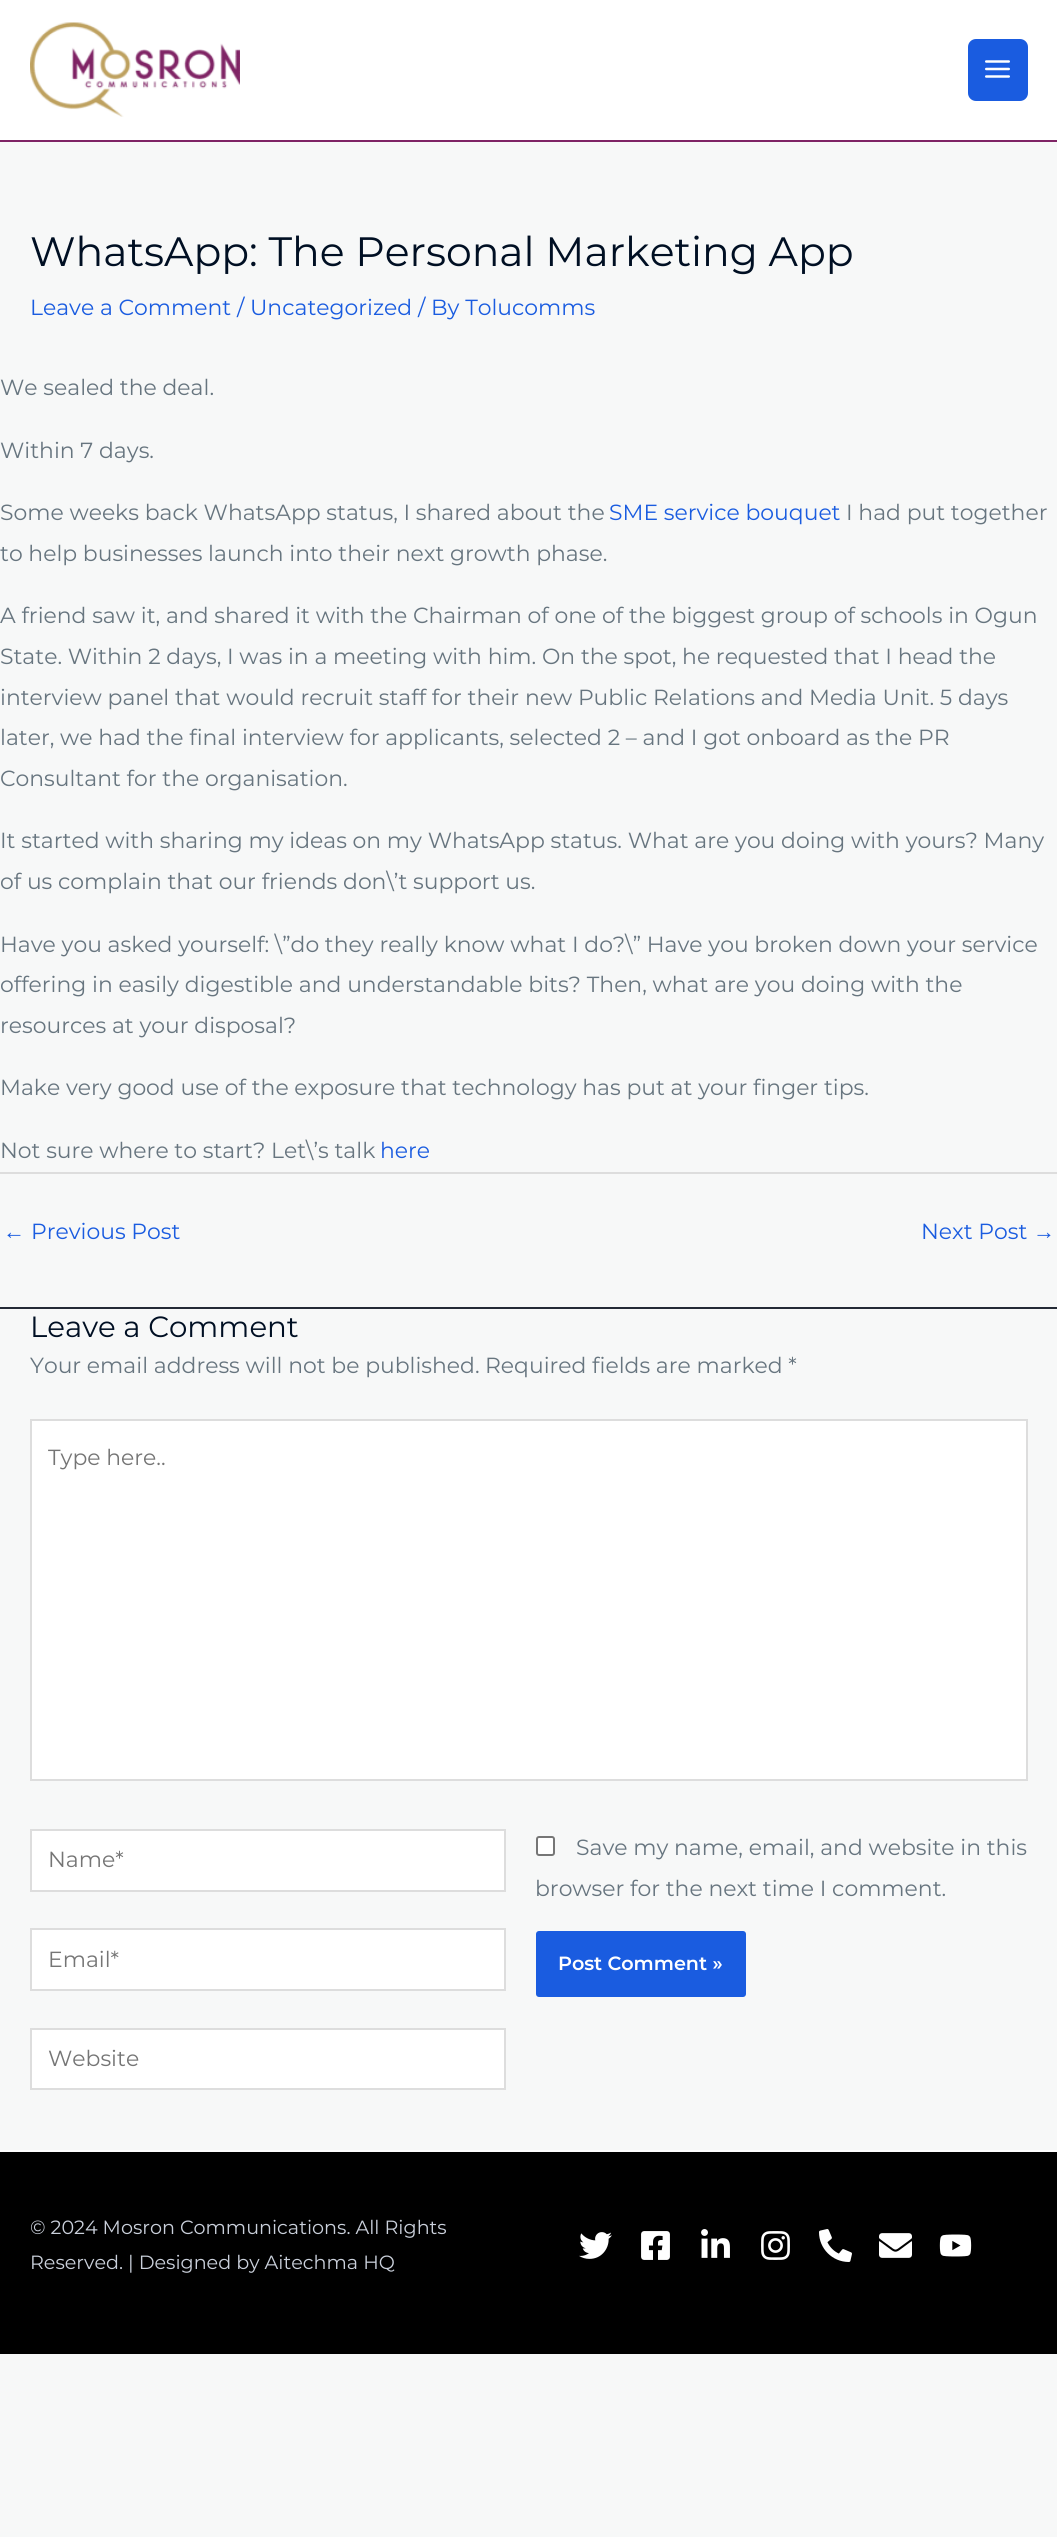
import math
import cairo

surface = cairo.ImageSurface(cairo.FORMAT_RGB24, 1057, 2537)
c = cairo.Context(surface)
options = cairo.FontOptions()
options.set_hint_metrics(cairo.HINT_METRICS_OFF)
options.set_hint_style(cairo.HINT_STYLE_NONE)
c.set_font_options(options)
c.set_miter_limit(4)
def C(code):
 c.set_source_rgb(*(v / 255 for v in bytes.fromhex(code[-6:])))
def F(family, size, italic, bold):
 c.select_font_face(family, cairo.FONT_SLANT_ITALIC if italic else cairo.FONT_SLANT_NORMAL, cairo.FONT_WEIGHT_BOLD if bold else cairo.FONT_WEIGHT_NORMAL)
 c.set_font_size(size)
def T(x, y, s):
 c.move_to(x, y)
 c.show_text(s)
def R(x, y, w, h):
 c.rectangle(x, y, w, h)
 c.fill()
def Q(x, y, w, h, r):
 c.new_sub_path()
 for i, (u, v) in enumerate([(x + w - r, y + h - r), (x + r, y + h - r), (x + r, y + r), (x + w - r, y + r)]):
  c.arc(u, v, r, i * math.pi / 2, (i + 1) * math.pi / 2)
 c.close_path()
def I(path, x, y, w, h):
 c.save()
 c.set_source_surface(cairo.ImageSurface.create_from_png(path), x, y)
 c.rectangle(x, y, w, h)
 c.fill()
 c.restore()
C('f7f8f8')
c.paint()
C('ffffff')
R(0,0,1057,140)
C('7f2465')
R(0,140,1057,2)
I('1.png',30,22,210,95)
C('1a5ce0')
Q(968,39,60,62,8)
c.fill()
I('2.png',985,60,25,18)
F('Montserrat',41,0,0)
C('000f23')
T(30,266,'WhatsApp: The Personal Marketing App')
F('Montserrat',21.9,0,0)
C('1a5ce0')
T(30,315,'Leave a Comment / Uncategorized / By Tolucomms')
C('67757f')
T(0,395,'We sealed the deal.')
T(0,458,'Within 7 days.')
T(0,520,'Some weeks back WhatsApp status, I shared about the')
C('1a5ce0')
T(609,520,'SME service bouquet')
C('67757f')
T(846,520,'I had put together')
T(0,561,'to help businesses launch into their next growth phase.')
T(0,623,'A friend saw it, and shared it with the Chairman of one of the biggest group of schools in Ogun')
T(0,664,'State. Within 2 days, I was in a meeting with him. On the spot, he requested that I head the')
T(0,705,'interview panel that would recruit staff for their new Public Relations and Media Unit. 5 days')
T(0,745,'later, we had the final interview for applicants, selected 2 – and I got onboard as the PR')
T(0,786,'Consultant for the organisation.')
T(0,848,'It started with sharing my ideas on my WhatsApp status. What are you doing with yours? Many')
T(0,889,'of us complain that our friends don\\’t support us.')
T(0,952,'Have you asked yourself: \\”do they really know what I do?\\” Have you broken down your service')
T(0,992,'offering in easily digestible and understandable bits? Then, what are you doing with the')
T(0,1033,'resources at your disposal?')
T(0,1095,'Make very good use of the exposure that technology has put at your finger tips.')
T(0,1158,'Not sure where to start? Let\\’s talk')
C('1a5ce0')
T(380,1158,'here')
C('dddddd')
R(0,1172,1057,2)
F('Liberation Sans',21.9,0,0)
C('1a5ce0')
T(3,1239,'←')
F('Montserrat',21.9,0,0)
T(31,1239,'Previous Post')
T(921,1239,'Next Post')
F('Liberation Sans',21.9,0,0)
T(1033,1239,'→')
C('242a36')
R(0,1307,1057,2)
F('Montserrat',29.25,0,0)
C('000f23')
T(30,1337,'Leave a Comment')
F('Montserrat',21.9,0,0)
C('67757f')
T(30,1373,'Your email address will not be published.')
T(485,1373,'Required fields are marked *')
C('ffffff')
c.rectangle(31,1420,996,360)
c.fill_preserve()
C('dddddd')
c.stroke()
C('757575')
T(48,1465,'Type here..')
C('ffffff')
c.rectangle(31,1830,474,61)
c.fill_preserve()
C('dddddd')
c.stroke()
C('757575')
T(48,1867,'Name*')
C('ffffff')
c.rectangle(31,1929,474,61)
c.fill_preserve()
C('dddddd')
c.stroke()
C('757575')
T(48,1967,'Email*')
C('ffffff')
c.rectangle(31,2029,474,60)
c.fill_preserve()
C('dddddd')
c.stroke()
C('757575')
T(48,2066,'Website')
C('ffffff')
Q(537,1837,17,18,2)
c.fill_preserve()
C('767676')
c.stroke()
C('67757f')
T(576,1855,'Save my name, email, and website in this')
T(535,1896,'browser for the next time I comment.')
C('1a5ce0')
Q(536,1931,210,66,3)
c.fill()
F('Montserrat SemiBold',19.15,0,0)
C('ffffff')
T(558,1970,'Post Comment »')
C('000000')
R(0,2152,1057,202)
C('ffffff')
R(0,2150,1057,2)
F('Montserrat',19.15,0,0)
C('cad0db')
T(30,2234,'© 2024 Mosron Communications. All Rights')
T(30,2269,'Reserved. | Designed by Aitechma HQ')
I('3.png',579,2232,33,27)
I('4.png',641,2231,29,29)
I('5.png',701,2229,29,29)
I('6.png',761,2231,29,29)
I('7.png',819,2229,33,33)
I('8.png',879,2233,33,25)
I('9.png',939,2234,33,23)
surface.write_to_png('o.png')
